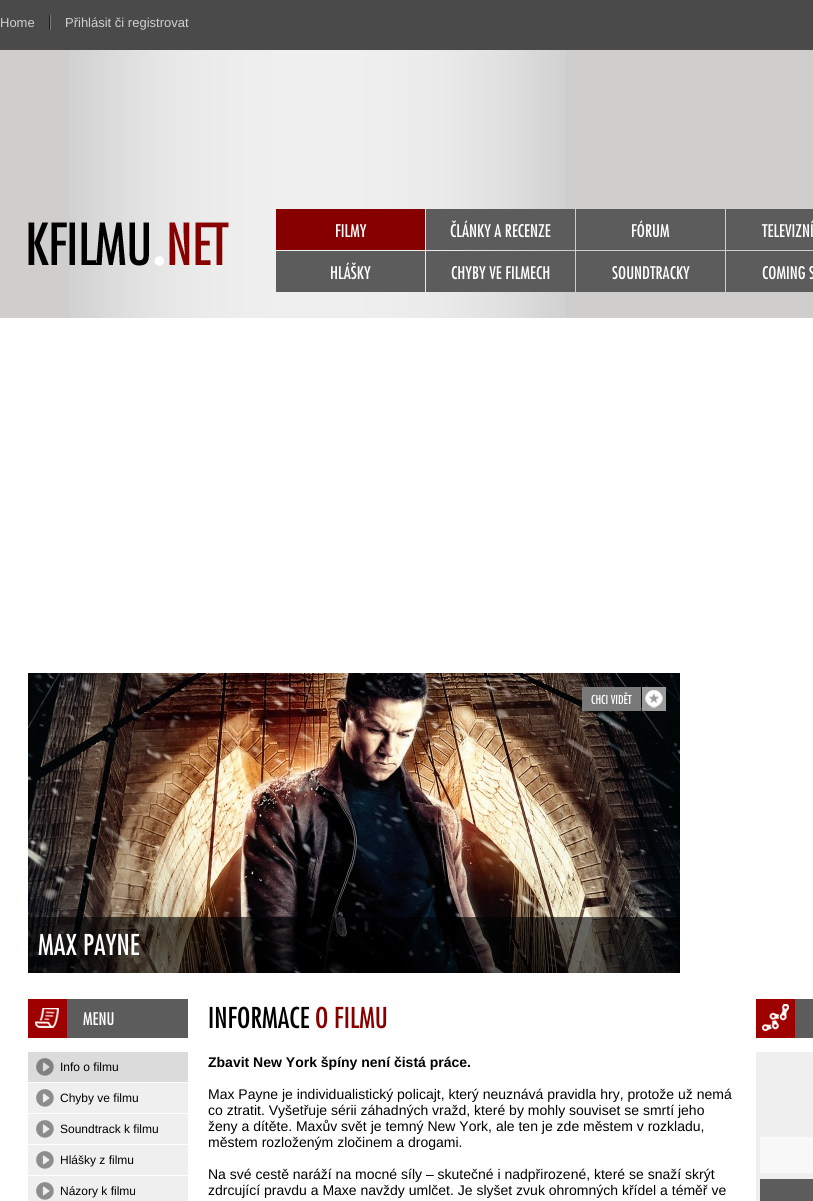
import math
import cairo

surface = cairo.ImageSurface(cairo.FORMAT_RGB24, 813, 1201)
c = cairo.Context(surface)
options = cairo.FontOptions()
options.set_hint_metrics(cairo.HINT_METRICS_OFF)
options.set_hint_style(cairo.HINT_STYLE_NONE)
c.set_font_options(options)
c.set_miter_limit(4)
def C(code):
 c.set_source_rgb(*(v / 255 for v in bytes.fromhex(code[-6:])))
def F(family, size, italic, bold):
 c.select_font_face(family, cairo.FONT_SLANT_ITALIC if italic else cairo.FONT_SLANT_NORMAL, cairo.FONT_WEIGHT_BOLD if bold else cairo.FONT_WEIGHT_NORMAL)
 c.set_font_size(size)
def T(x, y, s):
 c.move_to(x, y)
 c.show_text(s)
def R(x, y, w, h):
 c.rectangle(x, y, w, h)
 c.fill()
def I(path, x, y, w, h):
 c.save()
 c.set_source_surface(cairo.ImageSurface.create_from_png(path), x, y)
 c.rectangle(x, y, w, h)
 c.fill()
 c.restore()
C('ffffff')
c.paint()
C('4a4a4a')
R(0,0,813,50)
C('1f1f1f')
R(49,15,1,15)
F('Liberation Sans',13,0,0)
C('d0d0d0')
T(0,27,'Home')
C('787878')
R(50,15,1,15)
C('d0d0d0')
T(65,27,'Přihlásit či registrovat')
C('d0cdcd')
R(0,50,813,268)
I('1.png',70,50,495,268)
I('2.png',28,222,201,44)
C('860000')
R(276,209,149,41)
F('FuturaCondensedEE',17,0,0)
C('ffffff')
T(335,237,'FILMY')
C('5c5c5c')
R(426,209,149,41)
C('ffffff')
T(450,237,'ČLÁNKY A RECENZE')
C('5c5c5c')
R(576,209,149,41)
C('ffffff')
T(631,237,'FÓRUM')
C('5c5c5c')
R(726,209,87,41)
C('ffffff')
T(762,237,'TELEVIZNÍ')
C('5c5c5c')
R(276,251,149,41)
C('ffffff')
T(330,279,'HLÁŠKY')
C('5c5c5c')
R(426,251,149,41)
C('ffffff')
T(451,279,'CHYBY VE FILMECH')
C('5c5c5c')
R(576,251,149,41)
C('ffffff')
T(612,279,'SOUNDTRACKY')
C('5c5c5c')
R(726,251,87,41)
C('ffffff')
T(762,279,'COMING S')
I('3.png',28,673,652,300)
C('797979')
R(582,687,59,24)
F('FuturaCondensedEE',12,0,0)
C('ffffff')
T(591,704,'CHCI VIDĚT')
I('4.png',642,687,24,24)
c.set_source_rgba(0,0,0,0.6)
R(28,917,652,56)
F('FuturaCondensedEE',28,0,0)
C('ffffff')
T(38,955,'MAX PAYNE')
C('5c5c5c')
R(67,999,121,39)
I('5.png',28,999,39,39)
F('FuturaCondensedEE',17,0,0)
C('ffffff')
T(83,1025,'MENU')
C('dbdbdb')
R(28,1052,160,30)
I('6.png',36,1058,18,18)
F('Liberation Sans',12,0,0)
C('000000')
T(60,1071,'Info o filmu')
C('efefef')
R(28,1083,160,30)
I('7.png',36,1089,18,18)
C('000000')
T(60,1102,'Chyby ve filmu')
C('efefef')
R(28,1114,160,30)
I('7.png',36,1120,18,18)
C('000000')
T(60,1133,'Soundtrack k filmu')
C('efefef')
R(28,1145,160,30)
I('7.png',36,1151,18,18)
C('000000')
T(60,1164,'Hlášky z filmu')
C('efefef')
R(28,1176,160,25)
I('7.png',36,1182,18,18)
C('000000')
T(60,1195,'Názory k filmu')
F('FuturaCondensedEE',28,0,0)
T(208,1028,'INFORMACE')
C('860000')
T(315,1028,'O FILMU')
F('Liberation Sans',14,0,1)
C('000000')
T(208,1067,'Zbavit New York špíny není čistá práce.')
F('Liberation Sans',14,0,0)
T(208,1099,'Max Payne je individualistický policajt, který neuznává pravidla hry, protože už nemá')
T(208,1115,'co ztratit. Vyšetřuje sérii záhadných vražd, které by mohly souviset se smrtí jeho')
T(208,1131,'ženy a dítěte. Maxův svět je temný New York, ale ten je zde městem v rozkladu,')
T(208,1147,'městem rozloženým zločinem a drogami.')
T(208,1179,'Na své cestě naráží na mocné síly – skutečné i nadpřirozené, které se snaží skrýt')
T(208,1195,'zdrcující pravdu a Maxe navždy umlčet. Je slyšet zvuk ohromných křídel a téměř ve')
C('5c5c5c')
R(795,999,18,39)
I('8.png',756,999,39,39)
C('efefef')
R(756,1052,57,149)
C('f8f8f8')
R(760,1137,53,36)
C('5c5c5c')
R(760,1179,53,22)
surface.write_to_png('o.png')
